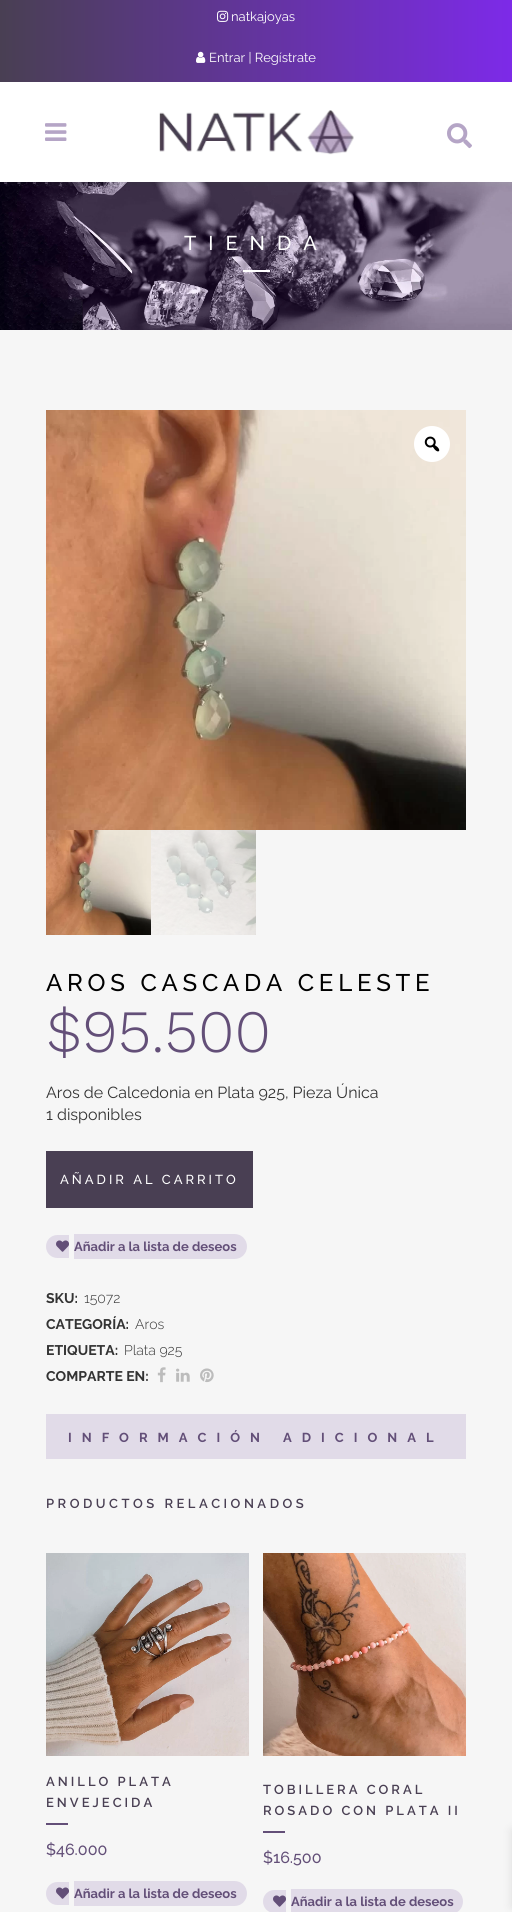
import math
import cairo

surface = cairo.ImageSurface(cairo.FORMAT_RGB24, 512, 1912)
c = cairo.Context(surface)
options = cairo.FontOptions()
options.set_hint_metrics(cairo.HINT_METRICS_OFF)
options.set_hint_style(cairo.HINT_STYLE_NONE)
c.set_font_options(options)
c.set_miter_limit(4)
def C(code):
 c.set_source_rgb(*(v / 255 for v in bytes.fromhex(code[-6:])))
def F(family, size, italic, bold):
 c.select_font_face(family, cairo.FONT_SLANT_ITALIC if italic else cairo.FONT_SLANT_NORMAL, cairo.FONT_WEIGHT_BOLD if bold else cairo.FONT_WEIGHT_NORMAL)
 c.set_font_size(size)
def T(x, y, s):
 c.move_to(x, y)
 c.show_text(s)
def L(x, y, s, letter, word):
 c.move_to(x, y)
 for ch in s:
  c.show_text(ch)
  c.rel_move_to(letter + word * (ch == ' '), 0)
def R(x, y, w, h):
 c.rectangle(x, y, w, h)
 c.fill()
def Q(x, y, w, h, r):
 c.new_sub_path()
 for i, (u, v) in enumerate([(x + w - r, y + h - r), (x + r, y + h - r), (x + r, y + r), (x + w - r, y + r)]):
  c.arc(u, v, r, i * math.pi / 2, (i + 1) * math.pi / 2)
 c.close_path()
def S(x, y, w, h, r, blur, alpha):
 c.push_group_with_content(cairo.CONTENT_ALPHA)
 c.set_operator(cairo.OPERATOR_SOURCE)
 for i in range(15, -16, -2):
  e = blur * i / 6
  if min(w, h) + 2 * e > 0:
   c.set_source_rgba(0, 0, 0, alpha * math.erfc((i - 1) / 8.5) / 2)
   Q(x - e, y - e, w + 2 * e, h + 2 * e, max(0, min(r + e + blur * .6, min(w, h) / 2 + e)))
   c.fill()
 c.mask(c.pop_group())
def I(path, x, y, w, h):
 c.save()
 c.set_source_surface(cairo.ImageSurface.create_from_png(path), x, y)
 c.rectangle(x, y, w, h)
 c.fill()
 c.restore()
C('f6f6f6')
c.paint()
gradient = cairo.LinearGradient(0,41,512,41)
gradient.add_color_stop_rgba(0,0.286,0.247,0.325,1)
gradient.add_color_stop_rgba(1,0.49,0.165,0.91,1)
c.set_source(gradient)
R(0,0,512,82)
I('1.png',217,10,12,12)
F('Raleway',13,0,0)
C('ffffff')
T(231,21,'natkajoyas')
I('2.png',196,51,10,12)
T(209,62,'Entrar | Regístrate')
R(0,82,512,100)
I('3.png',45,123,22,18)
I('4.png',159,110,195,45)
I('5.png',447,123,25,26)
I('6.png',0,182,512,148)
F('Raleway Medium',20,0,0)
L(184,250,'TIENDA',12,0)
R(243,270,27,2)
I('7.png',46,410,420,420)
c.arc(432,444,18,0,2 * math.pi)
c.fill()
I('8.png',424,436,16,16)
I('9.png',46,830,105,105)
I('10.png',151,830,105,105)
F('Raleway Medium',24,0,0)
C('000000')
L(46,991,'AROS CASCADA CELESTE',4.75,0)
F('Work Sans Light',60,0,0)
C('634f78')
T(46,1052,'$95.500')
F('Raleway',16,0,0)
C('333333')
T(46,1098,'Aros de Calcedonia en Plata 925, Pieza Única')
T(46,1120,'1 disponibles')
C('493f53')
R(46,1151,207,57)
F('Raleway Medium',13,0,0)
C('ffffff')
L(60,1184,'AÑADIR AL CARRITO',3,0)
C('e1dbe8')
c.new_path()
c.move_to(57.5,1235)
c.line_to(69,1235)
c.line_to(69,1258)
c.line_to(57.5,1258)
c.curve_to(51,1258,46,1253,46,1246.5)
c.curve_to(46,1240,51,1235,57.5,1235)
c.close_path()
c.fill()
I('11.png',56,1240,13,12)
c.new_path()
c.move_to(74,1234)
c.line_to(234.5,1234)
c.curve_to(241.5,1234,247,1239.5,247,1246.5)
c.curve_to(247,1253.5,241.5,1259,234.5,1259)
c.line_to(74,1259)
c.close_path()
c.fill()
F('Raleway',13,0,1)
C('634f78')
T(74,1251,'Añadir a la lista de deseos')
F('Raleway',14,0,1)
C('333333')
T(46,1303,'SKU:')
F('Raleway Light',14,0,0)
T(84,1303,'15072')
F('Raleway',14,0,1)
T(46,1329,'CATEGORÍA:')
F('Raleway Light',14,0,0)
T(135,1329,'Aros')
F('Raleway',14,0,1)
T(46,1355,'ETIQUETA:')
F('Raleway Light',14,0,0)
T(124,1355,'Plata 925')
F('Raleway',14,0,1)
T(46,1381,'COMPARTE EN:')
I('12.png',157,1367,9,16)
I('13.png',176,1368,14,14)
I('14.png',200,1368,14,15)
C('e1dbe8')
R(46,1414,420,45)
F('Raleway',13,0,1)
C('634f78')
L(68,1442,'INFORMACIÓN ADICIONAL',10,0)
F('Raleway SemiBold',13,0,0)
C('493f53')
L(46,1508,'PRODUCTOS RELACIONADOS',3.5,0)
I('15.png',46,1553,203,203)
L(46,1786,'ANILLO PLATA',3,0)
L(46,1807,'ENVEJECIDA',3,0)
C('634f78')
R(46,1823,22,2)
F('Raleway Medium',16,0,0)
T(46,1855,'$46.000')
C('e1dbe8')
c.new_path()
c.move_to(57.5,1882)
c.line_to(69,1882)
c.line_to(69,1905)
c.line_to(57.5,1905)
c.curve_to(51,1905,46,1900,46,1893.5)
c.curve_to(46,1887,51,1882,57.5,1882)
c.close_path()
c.fill()
I('11.png',56,1887,13,12)
c.new_path()
c.move_to(74,1881)
c.line_to(234.5,1881)
c.curve_to(241.5,1881,247,1886.5,247,1893.5)
c.curve_to(247,1900.5,241.5,1906,234.5,1906)
c.line_to(74,1906)
c.close_path()
c.fill()
F('Raleway',13,0,1)
C('634f78')
T(74,1898,'Añadir a la lista de deseos')
I('16.png',263,1553,203,203)
F('Raleway SemiBold',13,0,0)
C('493f53')
L(263,1794,'TOBILLERA CORAL',3,0)
L(263,1815,'ROSADO CON PLATA II',3,0)
C('634f78')
R(263,1831,22,2)
F('Raleway Medium',16,0,0)
T(263,1863,'$16.500')
C('e1dbe8')
c.new_path()
c.move_to(274.5,1890)
c.line_to(286,1890)
c.line_to(286,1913)
c.line_to(274.5,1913)
c.curve_to(268,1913,263,1908,263,1901.5)
c.curve_to(263,1895,268,1890,274.5,1890)
c.close_path()
c.fill()
I('11.png',273,1895,13,12)
c.new_path()
c.move_to(291,1889)
c.line_to(450.5,1889)
c.curve_to(457.5,1889,463,1894.5,463,1901.5)
c.curve_to(463,1908.5,457.5,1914,450.5,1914)
c.line_to(291,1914)
c.close_path()
c.fill()
F('Raleway',13,0,1)
C('634f78')
T(291,1906,'Añadir a la lista de deseos')
C('000000')
S(512,1830,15,77,0,5,.1)
surface.write_to_png('o.png')
